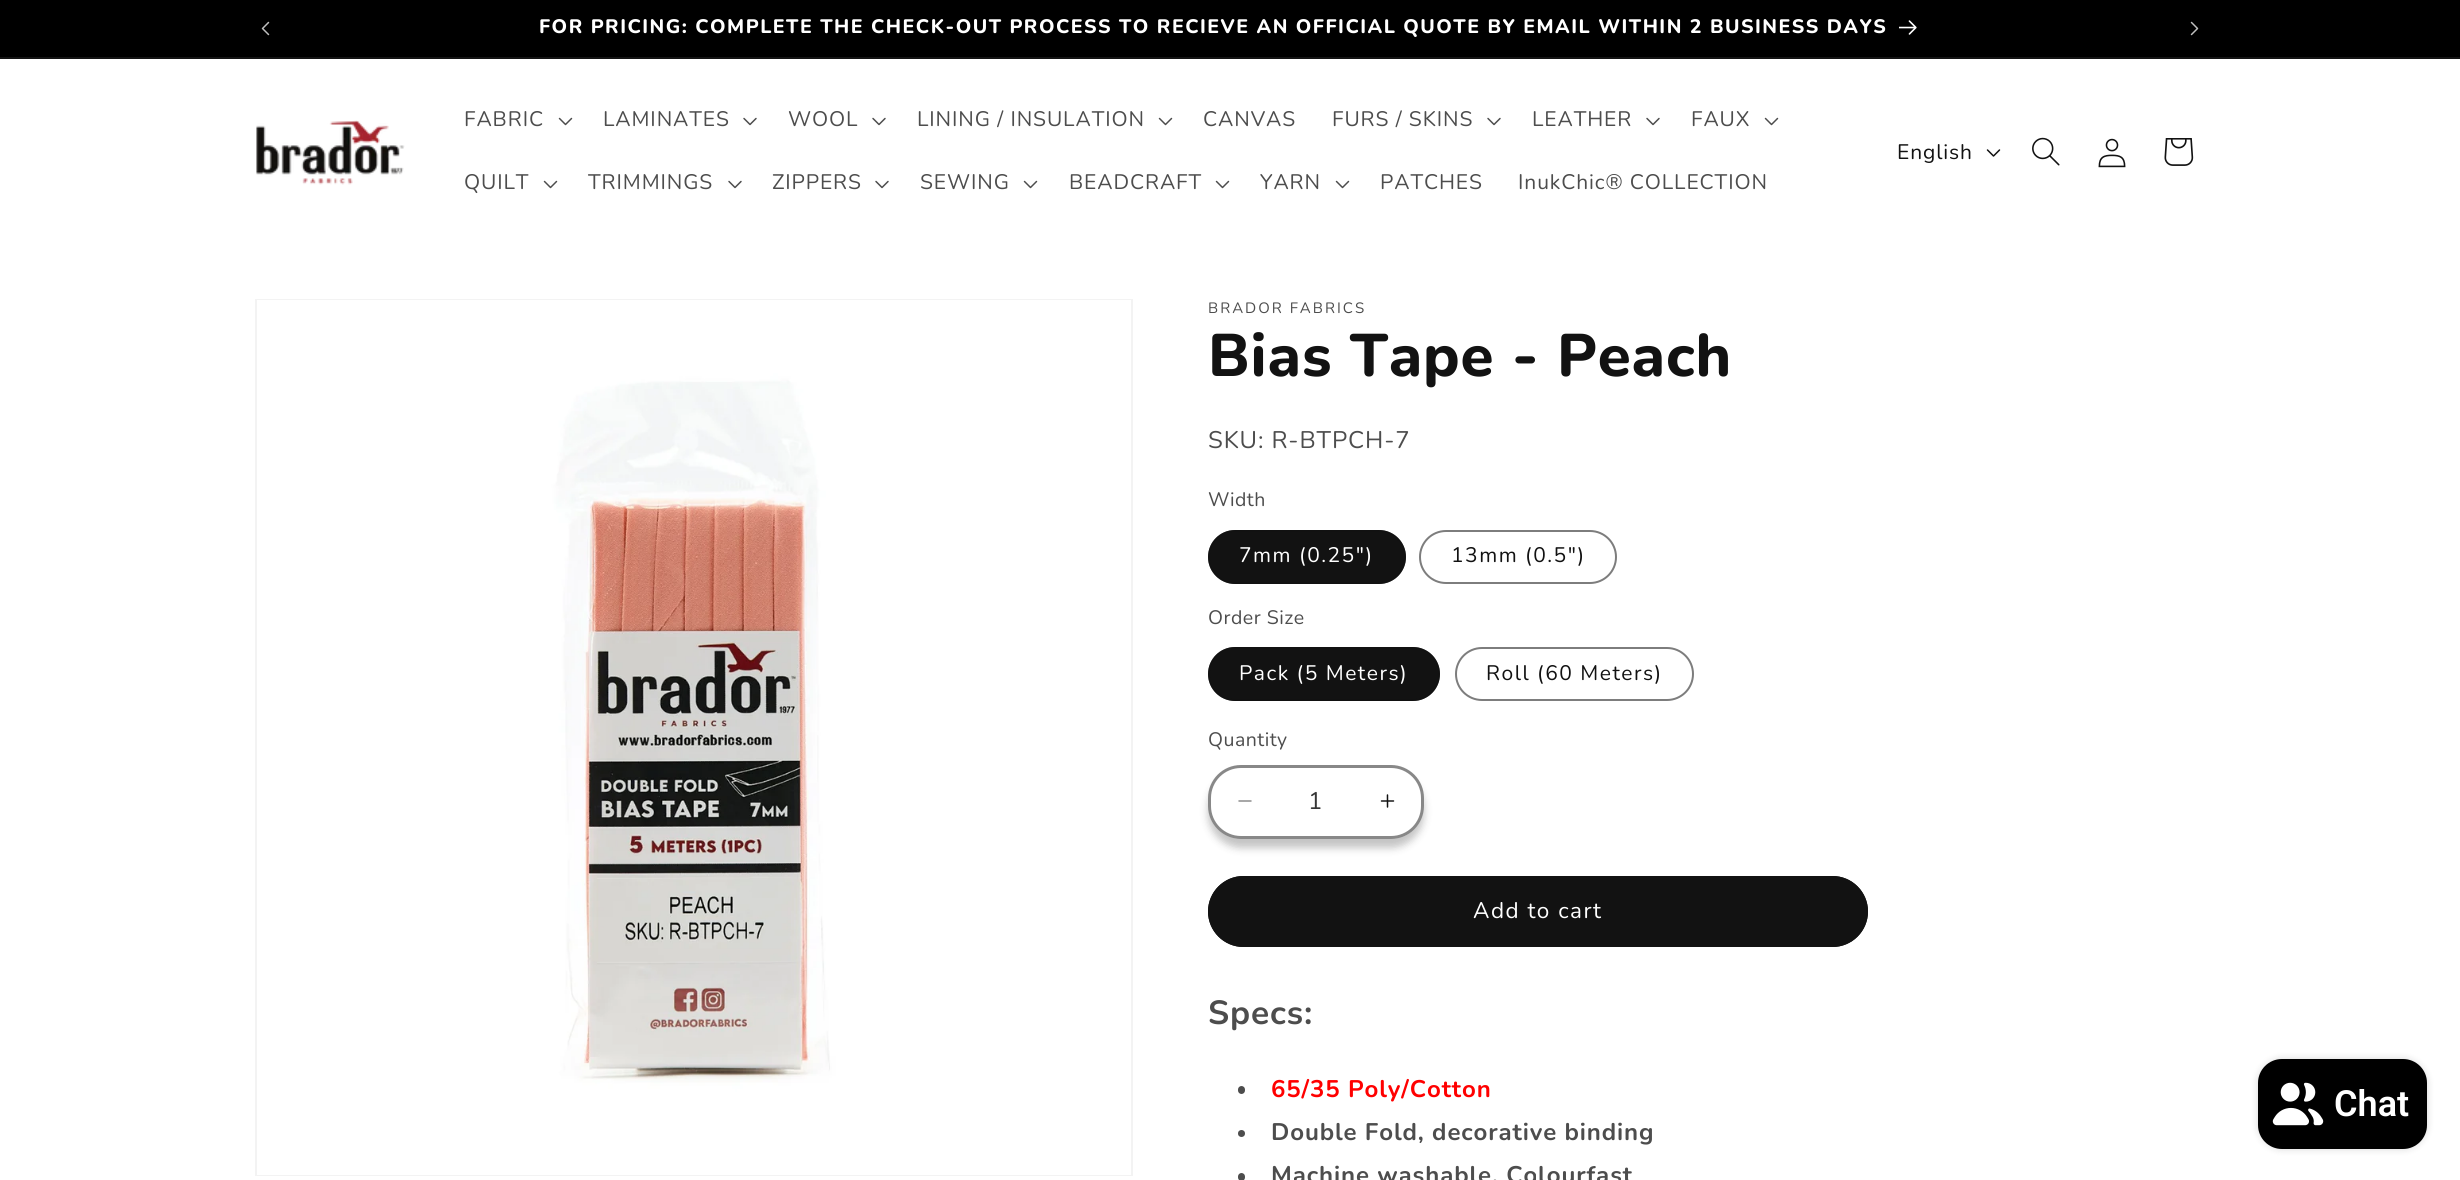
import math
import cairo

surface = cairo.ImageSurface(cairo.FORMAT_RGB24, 2460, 1180)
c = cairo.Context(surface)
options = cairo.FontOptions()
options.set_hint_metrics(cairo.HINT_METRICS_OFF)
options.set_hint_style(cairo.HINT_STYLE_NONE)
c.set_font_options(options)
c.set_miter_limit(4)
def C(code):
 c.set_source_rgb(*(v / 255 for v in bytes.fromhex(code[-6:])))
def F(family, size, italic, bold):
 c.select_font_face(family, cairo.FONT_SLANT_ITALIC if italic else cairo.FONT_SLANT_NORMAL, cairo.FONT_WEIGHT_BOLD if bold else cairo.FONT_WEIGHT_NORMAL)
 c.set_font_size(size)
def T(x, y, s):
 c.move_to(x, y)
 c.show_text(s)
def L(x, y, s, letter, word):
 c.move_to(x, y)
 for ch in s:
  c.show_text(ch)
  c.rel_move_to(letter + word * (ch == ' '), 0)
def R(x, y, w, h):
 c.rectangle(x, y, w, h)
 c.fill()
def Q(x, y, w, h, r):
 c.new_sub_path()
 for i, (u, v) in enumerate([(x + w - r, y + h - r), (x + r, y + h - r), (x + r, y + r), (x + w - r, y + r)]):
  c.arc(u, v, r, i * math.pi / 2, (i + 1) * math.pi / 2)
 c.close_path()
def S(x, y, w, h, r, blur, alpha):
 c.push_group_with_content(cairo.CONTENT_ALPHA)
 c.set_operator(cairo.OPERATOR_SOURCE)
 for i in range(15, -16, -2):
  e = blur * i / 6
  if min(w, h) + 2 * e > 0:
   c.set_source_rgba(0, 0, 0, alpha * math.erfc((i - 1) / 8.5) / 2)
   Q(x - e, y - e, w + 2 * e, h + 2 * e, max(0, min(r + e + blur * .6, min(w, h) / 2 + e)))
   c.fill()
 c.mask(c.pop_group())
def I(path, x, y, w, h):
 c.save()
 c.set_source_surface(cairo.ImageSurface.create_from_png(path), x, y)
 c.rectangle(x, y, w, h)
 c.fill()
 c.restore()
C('ffffff')
c.paint()
C('000000')
R(0,0,2460,57)
C('141414')
R(0,57,2460,2)
I('1.png',261,21,9,15)
F('Nunito ExtraBold',19.5,0,0)
C('ffffff')
L(539,33,'FOR PRICING: COMPLETE THE CHECK-OUT PROCESS TO RECIEVE AN OFFICIAL QUOTE BY EMAIL WITHIN 2 BUSINESS DAYS',1.5,0)
I('2.png',1899,20,18,15)
I('3.png',2190,21,9,15)
I('4.png',256,120,149,65)
F('Nunito',21,0,0)
C('4d4d4d')
L(464,126,'FABRIC',.9,0)
I('5.png',558,117,15,9)
L(603,126,'LAMINATES',.9,0)
I('6.png',743,117,14,9)
L(788,126,'WOOL',.9,0)
I('6.png',872,117,14,9)
L(917,126,'LINING / INSULATION',.9,0)
I('5.png',1158,117,15,9)
L(1203,126,'CANVAS',.9,0)
L(1332,126,'FURS / SKINS',.9,0)
I('6.png',1487,117,14,9)
L(1532,126,'LEATHER',.9,0)
I('6.png',1646,117,14,9)
L(1691,126,'FAUX',.9,0)
I('5.png',1764,117,15,9)
L(464,189,'QUILT',.9,0)
I('5.png',543,180,15,9)
L(588,189,'TRIMMINGS',.9,0)
I('6.png',728,180,14,9)
L(772,189,'ZIPPERS',.9,0)
I('6.png',875,180,14,9)
L(920,189,'SEWING',.9,0)
I('5.png',1023,180,15,9)
L(1069,189,'BEADCRAFT',.9,0)
I('5.png',1215,180,15,9)
L(1260,189,'YARN',.9,0)
I('5.png',1335,180,15,9)
L(1380,189,'PATCHES',.9,0)
L(1518,189,'InukChic® COLLECTION',.9,0)
C('121212')
L(1897,159,'English',.9,0)
I('7.png',1986,149,15,8)
I('8.png',2032,137,28,29)
I('9.png',2098,138,28,30)
I('10.png',2164,138,30,28)
c.rectangle(256,300,876,875)
C('f3f3f3')
c.stroke()
I('11.png',257,300,874,875)
F('Nunito',15,0,0)
C('4d4d4d')
L(1208,313,'BRADOR FABRICS',2,0)
F('Nunito ExtraBold',60,0,0)
C('121212')
L(1208,376,'Bias Tape - Peach',.9,0)
F('Nunito',24,0,0)
C('4d4d4d')
L(1208,448,'SKU: R-BTPCH-7',.9,0)
F('Nunito',19.5,0,0)
L(1208,506,'Width',.5,0)
C('121212')
Q(1208,530,198,54,27)
c.fill()
Q(1209,531,196,52,26)
c.set_source_rgba(0.071,0.071,0.071,0.55)
c.stroke()
F('Nunito',21,0,0)
C('ffffff')
L(1239,562,'7mm (0.25")',1.5,0)
Q(1420,531,196,52,26)
C('7d7d7d')
c.stroke()
C('121212')
L(1451,562,'13mm (0.5")',1.5,0)
F('Nunito',19.5,0,0)
C('4d4d4d')
L(1208,624,'Order Size',.5,0)
C('121212')
Q(1208,647,232,54,27)
c.fill()
Q(1209,648,230,52,26)
c.set_source_rgba(0.071,0.071,0.071,0.55)
c.stroke()
F('Nunito',21,0,0)
C('ffffff')
L(1239,680,'Pack (5 Meters)',1.5,0)
Q(1456,648,237,52,26)
C('7d7d7d')
c.stroke()
C('121212')
L(1486,680,'Roll (60 Meters)',1.5,0)
F('Nunito',19.5,0,0)
C('4d4d4d')
L(1208,746,'Quantity',.5,0)
C('121212')
S(1208,774,216,74,33,4,.25)
C('ffffff')
Q(1208,765,216,74,33)
c.fill()
I('12.png',1238,800,14,2)
I('13.png',1380,794,15,14)
Q(1209.5,766.5,213,71,31.5)
c.set_source_rgba(0.071,0.071,0.071,0.5)
c.set_line_width(3)
c.stroke()
F('Nunito',24,0,0)
C('363636')
T(1308,809,'1')
C('121212')
Q(1208,876,660,71,35.5)
c.fill()
Q(1209,877,658,69,34.5)
c.set_line_width(2)
c.stroke()
F('Nunito',22.5,0,0)
C('ffffff')
L(1473,918,'Add to cart',1.5,0)
F('Nunito',33.5,0,1)
C('4d4d4d')
L(1208,1024,'Specs:',.9,0)
Q(1238,1086,7,8,3.5)
c.fill()
F('Nunito',24,0,1)
C('ff0000')
L(1271,1097,'65/35 Poly/Cotton',.9,0)
C('4d4d4d')
c.new_path()
c.arc(1241.5,1133.5,3.5,0,2 * math.pi)
c.fill()
L(1271,1140,'Double Fold, decorative binding',.9,0)
Q(1238,1173,7,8,3.5)
c.fill()
L(1271,1183,'Machine washable, Colourfast',.9,0)
C('000000')
S(2258,1059,169,90,24,4,.15)
C('000000')
Q(2258,1059,169,90,24)
c.fill()
I('14.png',2272,1082,52,44)
F('Roboto SemiBold',36,0,0)
C('ffffff')
T(2334,1116,'Chat')
surface.write_to_png('o.png')
